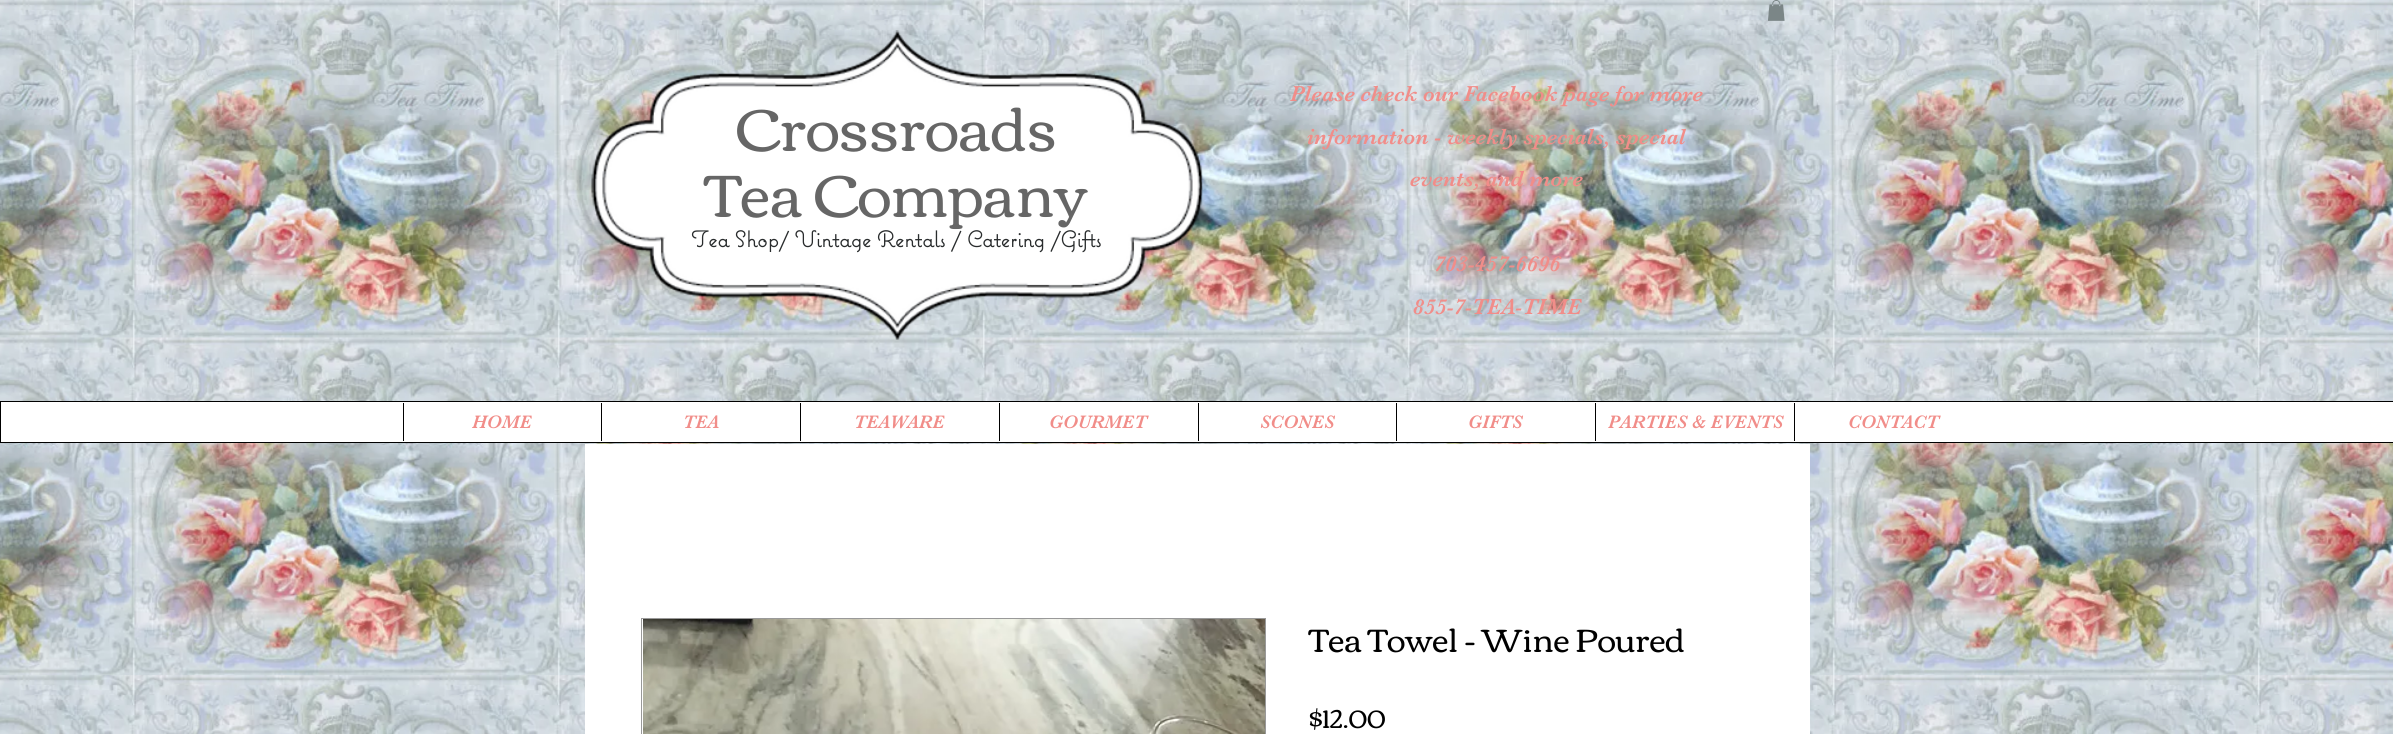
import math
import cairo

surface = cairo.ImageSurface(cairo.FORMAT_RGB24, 2393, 734)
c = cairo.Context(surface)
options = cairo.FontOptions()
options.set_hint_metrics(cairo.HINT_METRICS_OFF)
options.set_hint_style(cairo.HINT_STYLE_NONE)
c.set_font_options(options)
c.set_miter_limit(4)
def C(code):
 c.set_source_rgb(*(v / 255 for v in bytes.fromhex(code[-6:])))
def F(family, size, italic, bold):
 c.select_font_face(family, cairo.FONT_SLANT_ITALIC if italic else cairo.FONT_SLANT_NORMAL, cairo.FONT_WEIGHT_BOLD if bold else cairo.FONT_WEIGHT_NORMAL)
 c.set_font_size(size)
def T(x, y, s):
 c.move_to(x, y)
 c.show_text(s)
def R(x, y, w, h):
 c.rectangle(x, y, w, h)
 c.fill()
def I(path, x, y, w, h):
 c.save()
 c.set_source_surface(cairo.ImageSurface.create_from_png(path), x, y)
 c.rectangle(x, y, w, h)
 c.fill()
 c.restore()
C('ffffff')
c.paint()
I('1.png',0,0,2393,734)
I('2.png',1768,0,17,21)
I('3.png',591,30,612,310)
F('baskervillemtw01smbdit',22.5,0,0)
C('f18d89')
T(1290,101,'Please check our Facebook page for more')
T(1307,144,'information - weekly specials, special')
T(1410,186,'events, and more')
T(1434,271,'703-457-6696')
T(1413,314,'855-7-TEA-TIME')
F('Corben',60,0,0)
C('666666')
T(736,151,'Crossroads')
T(705,217,'Tea Company')
F('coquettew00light',22.5,0,1)
C('292c2d')
T(691,247,'Tea Shop/ Vintage Rentals / Catering /Gifts')
C('ffffff')
c.rectangle(.5,401.5,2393,41)
c.fill_preserve()
C('000000')
c.set_line_width(1)
c.stroke()
R(403,403,1,38)
F('baskervillemtw01smbdit',18.75,0,0)
C('f18d89')
T(472,428,'HOME')
C('000000')
R(601,403,1,38)
C('f18d89')
T(683,428,'TEA')
C('000000')
R(800,403,1,38)
C('f18d89')
T(854,428,'TEAWARE')
C('000000')
R(999,403,1,38)
C('f18d89')
T(1049,428,'GOURMET')
C('000000')
R(1198,403,1,38)
C('f18d89')
T(1260,428,'SCONES')
C('000000')
R(1396,403,1,38)
C('f18d89')
T(1468,428,'GIFTS')
C('000000')
R(1595,403,1,38)
C('f18d89')
T(1608,428,'PARTIES & EVENTS')
C('000000')
R(1794,403,1,38)
C('f18d89')
T(1848,428,'CONTACT')
C('ffffff')
R(585,444,1225,290)
c.rectangle(641.5,618.5,624,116)
C('999999')
c.stroke()
I('4.png',643,619,622,115)
F('Corben',32.5,0,0)
C('000000')
T(1309,652,'Tea Towel - Wine Poured')
F('Corben',25,0,0)
T(1309,728,'$12.00')
surface.write_to_png('o.png')
